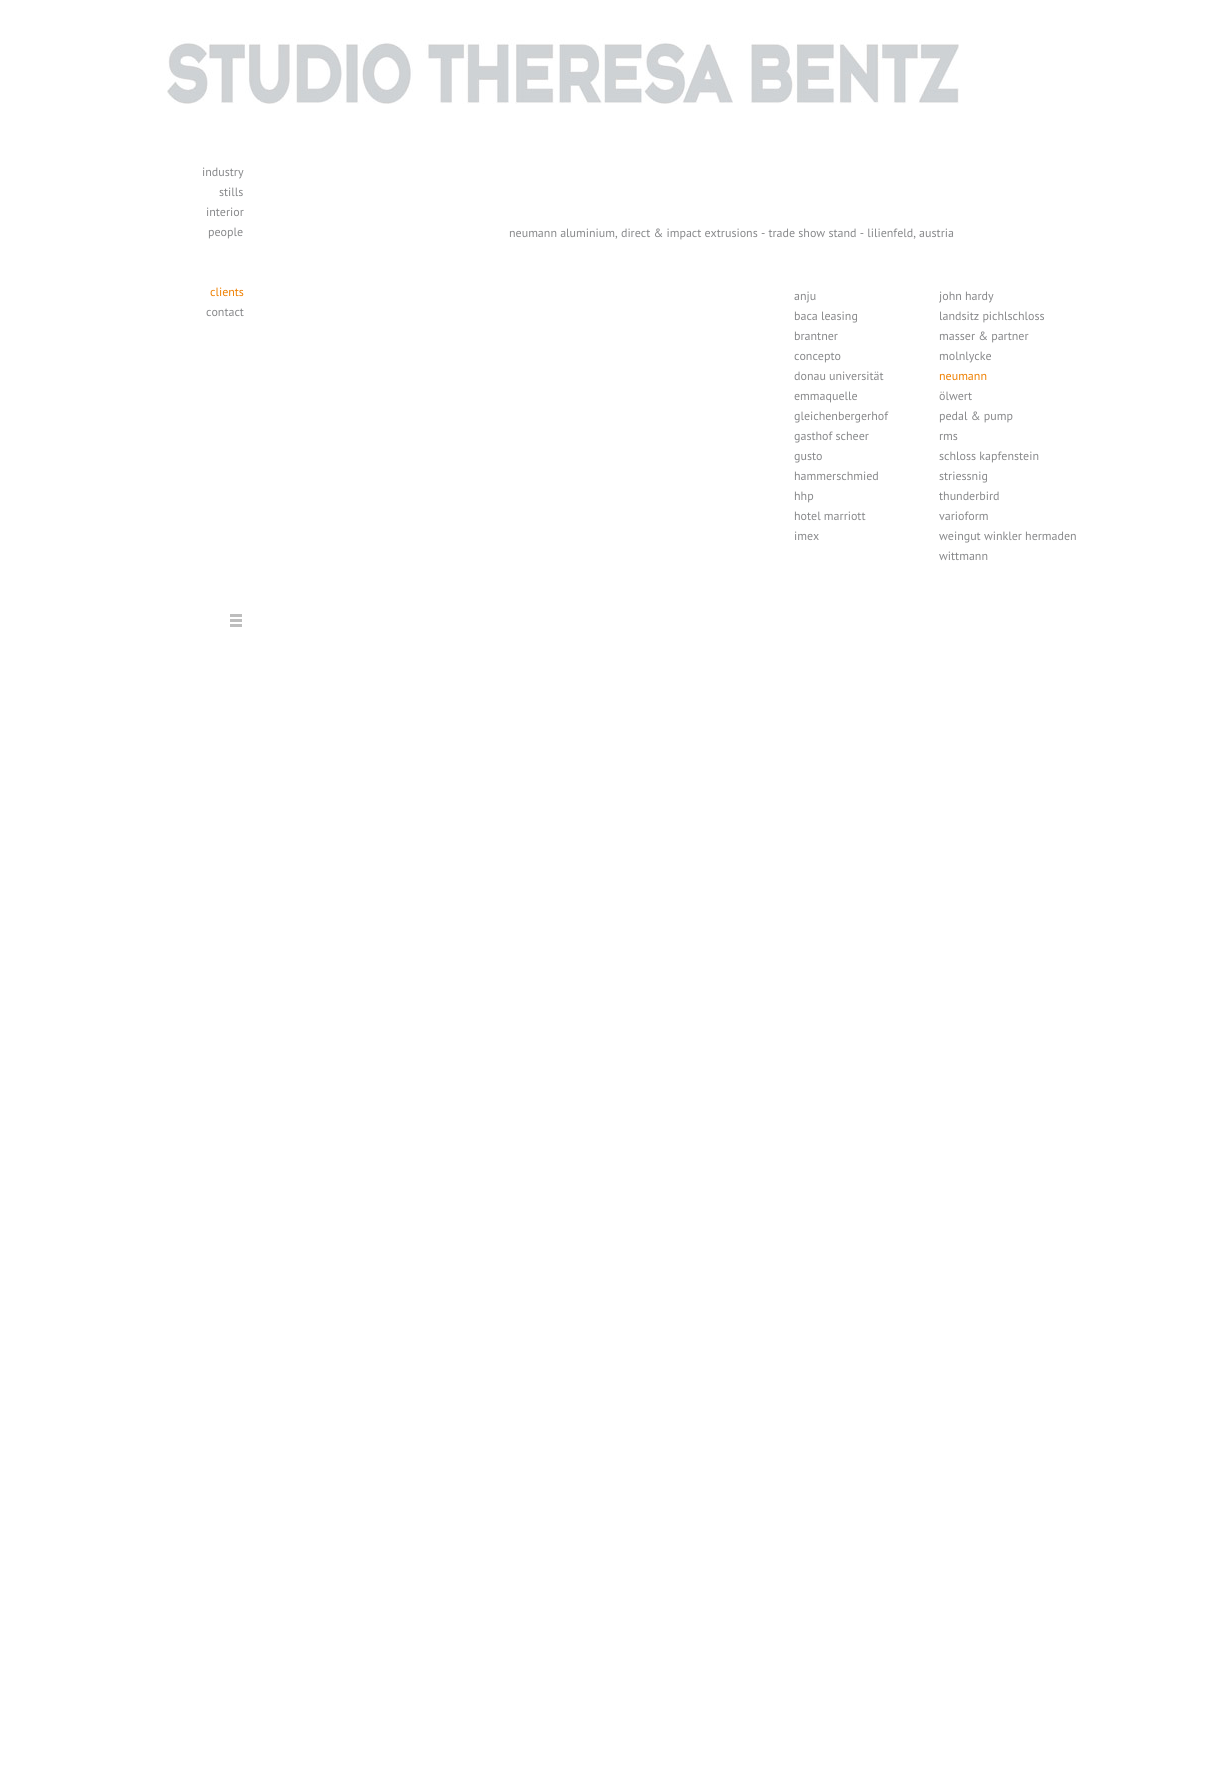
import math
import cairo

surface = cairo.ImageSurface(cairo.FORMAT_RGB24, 1223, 1791)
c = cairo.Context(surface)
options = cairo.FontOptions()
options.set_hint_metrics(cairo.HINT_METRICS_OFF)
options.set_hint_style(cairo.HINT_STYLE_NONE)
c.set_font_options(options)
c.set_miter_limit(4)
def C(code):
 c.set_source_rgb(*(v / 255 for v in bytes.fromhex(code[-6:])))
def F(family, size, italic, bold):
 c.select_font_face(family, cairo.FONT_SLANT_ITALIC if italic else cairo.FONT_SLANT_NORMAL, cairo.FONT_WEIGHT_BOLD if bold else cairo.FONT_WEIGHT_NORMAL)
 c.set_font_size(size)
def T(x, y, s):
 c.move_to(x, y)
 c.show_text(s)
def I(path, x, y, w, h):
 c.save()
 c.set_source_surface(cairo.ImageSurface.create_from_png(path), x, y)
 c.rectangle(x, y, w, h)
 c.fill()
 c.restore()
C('ffffff')
c.paint()
I('1.png',167,38,792,66)
F('PT Sans',12,0,0)
C('87888a')
T(202,176,'industry')
T(219,196,'stills')
T(206,216,'interior')
T(208,236,'people')
C('ee7f00')
T(210,296,'clients')
C('87888a')
T(206,316,'contact')
T(509,237,'neumann aluminium, direct & impact extrusions - trade show stand - lilienfeld, austria')
T(794,300,'anju')
T(794,320,'baca leasing')
T(794,340,'brantner')
T(794,360,'concepto')
T(794,380,'donau universität')
T(794,400,'emmaquelle')
T(794,420,'gleichenbergerhof')
T(794,440,'gasthof scheer')
T(794,460,'gusto')
T(794,480,'hammerschmied')
T(794,500,'hhp')
T(794,520,'hotel marriott')
T(794,540,'imex')
T(939,300,'john hardy')
T(939,320,'landsitz pichlschloss')
T(939,340,'masser & partner')
T(939,360,'molnlycke')
C('ee7f00')
T(939,380,'neumann')
C('87888a')
T(939,400,'ölwert')
T(939,420,'pedal & pump')
T(939,440,'rms')
T(939,460,'schloss kapfenstein')
T(939,480,'striessnig')
T(939,500,'thunderbird')
T(939,520,'varioform')
T(939,540,'weingut winkler hermaden')
T(939,560,'wittmann')
I('2.png',230,614,12,13)
surface.write_to_png('o.png')
